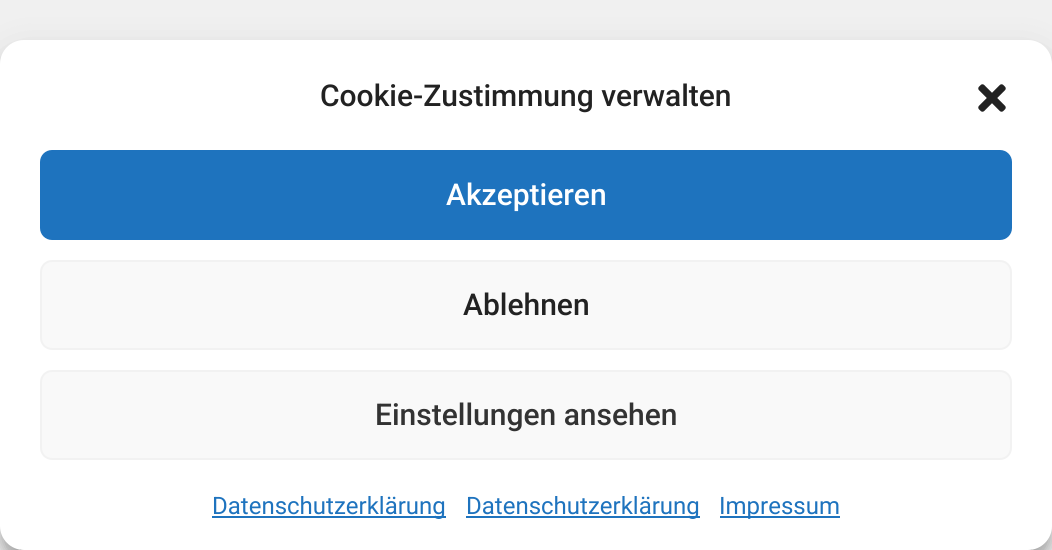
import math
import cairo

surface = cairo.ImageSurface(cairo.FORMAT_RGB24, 1052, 550)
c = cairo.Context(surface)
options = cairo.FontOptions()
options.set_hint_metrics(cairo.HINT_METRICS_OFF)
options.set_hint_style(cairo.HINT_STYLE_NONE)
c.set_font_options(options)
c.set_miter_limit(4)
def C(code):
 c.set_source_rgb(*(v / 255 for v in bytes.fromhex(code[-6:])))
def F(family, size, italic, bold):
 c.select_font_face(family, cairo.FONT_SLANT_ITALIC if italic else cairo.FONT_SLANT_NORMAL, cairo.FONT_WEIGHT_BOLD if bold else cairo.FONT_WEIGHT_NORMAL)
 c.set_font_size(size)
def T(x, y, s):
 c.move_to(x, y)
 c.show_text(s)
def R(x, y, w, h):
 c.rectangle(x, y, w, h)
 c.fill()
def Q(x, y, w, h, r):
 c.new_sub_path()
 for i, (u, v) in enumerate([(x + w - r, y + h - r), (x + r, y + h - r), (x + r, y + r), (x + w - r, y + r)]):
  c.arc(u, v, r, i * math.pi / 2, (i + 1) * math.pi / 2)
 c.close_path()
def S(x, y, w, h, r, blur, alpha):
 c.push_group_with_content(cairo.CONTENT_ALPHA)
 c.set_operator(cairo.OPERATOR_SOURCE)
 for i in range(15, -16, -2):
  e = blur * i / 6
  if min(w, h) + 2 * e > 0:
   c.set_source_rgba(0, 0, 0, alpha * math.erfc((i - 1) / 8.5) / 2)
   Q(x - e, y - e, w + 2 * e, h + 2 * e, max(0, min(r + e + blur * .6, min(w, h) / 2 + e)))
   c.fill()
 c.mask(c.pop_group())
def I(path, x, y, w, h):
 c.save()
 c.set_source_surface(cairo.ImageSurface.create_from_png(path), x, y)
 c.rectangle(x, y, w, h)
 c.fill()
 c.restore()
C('ffffff')
c.paint()
C('f0f0f0')
R(0,0,1052,64)
I('2.png',20,549,1012,1)
C('000000')
S(0,52,1052,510,24,6,.23)
S(0,60,1052,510,24,20,.19)
C('ffffff')
Q(0,40,1052,510,24)
c.fill()
F('Roboto Medium',30,0,0)
C('222222')
T(320,106,'Cookie-Zustimmung verwalten')
I('1.png',978,84,28,28)
C('1e73be')
Q(41,151,970,88,11)
c.fill_preserve()
c.stroke()
C('ffffff')
T(446,205,'Akzeptieren')
C('f9f9f9')
Q(41,261,970,88,11)
c.fill_preserve()
C('f2f2f2')
c.stroke()
C('222222')
T(463,315,'Ablehnen')
C('f9f9f9')
Q(41,371,970,88,11)
c.fill_preserve()
C('f2f2f2')
c.stroke()
C('333333')
T(375,425,'Einstellungen ansehen')
C('1e73be')
R(212,516,234,2)
F('Roboto',24,0,0)
T(212,514,'Datenschutzerklärung')
R(466,516,234,2)
T(466,514,'Datenschutzerklärung')
R(720,516,120,2)
T(719,514,'Impressum')
surface.write_to_png('o.png')
